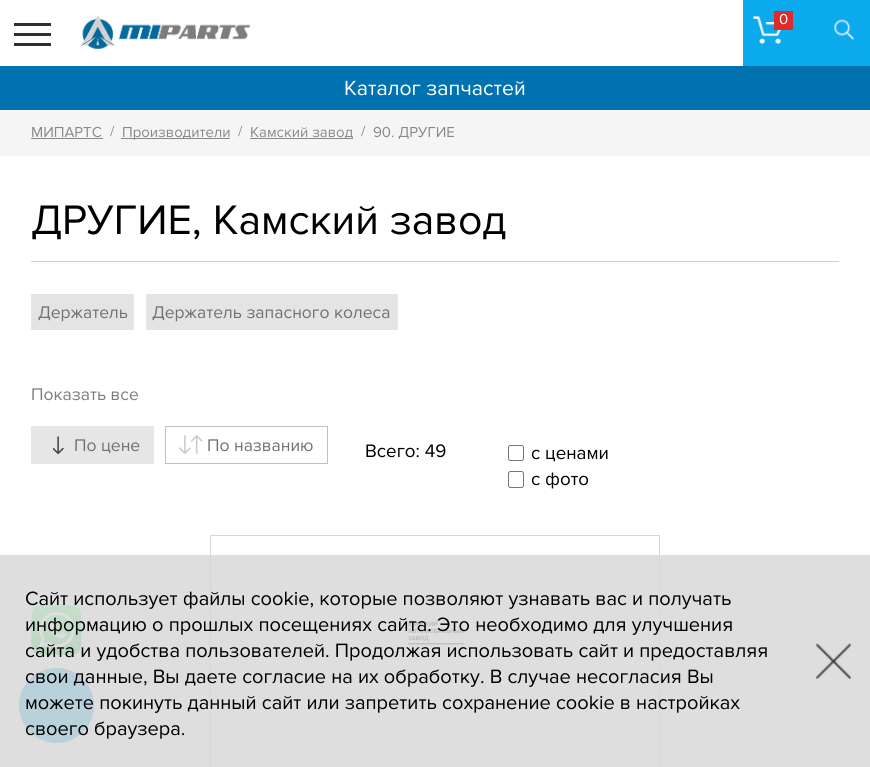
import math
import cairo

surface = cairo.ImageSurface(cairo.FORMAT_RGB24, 870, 767)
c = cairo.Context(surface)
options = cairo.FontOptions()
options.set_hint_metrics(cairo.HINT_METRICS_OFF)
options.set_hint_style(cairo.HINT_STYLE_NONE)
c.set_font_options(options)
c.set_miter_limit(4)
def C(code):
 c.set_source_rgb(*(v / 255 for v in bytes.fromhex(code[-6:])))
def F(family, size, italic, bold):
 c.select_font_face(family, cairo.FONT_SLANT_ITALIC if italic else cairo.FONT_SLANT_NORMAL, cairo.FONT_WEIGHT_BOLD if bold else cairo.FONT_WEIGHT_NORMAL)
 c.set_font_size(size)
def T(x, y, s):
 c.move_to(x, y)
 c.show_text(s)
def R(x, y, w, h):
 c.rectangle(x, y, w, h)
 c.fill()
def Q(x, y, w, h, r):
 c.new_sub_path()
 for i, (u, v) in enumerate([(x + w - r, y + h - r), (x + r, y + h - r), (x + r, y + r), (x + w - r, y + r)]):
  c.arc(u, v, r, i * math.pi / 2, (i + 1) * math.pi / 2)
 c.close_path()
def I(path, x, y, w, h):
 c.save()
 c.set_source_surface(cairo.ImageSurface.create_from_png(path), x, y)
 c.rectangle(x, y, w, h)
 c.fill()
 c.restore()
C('ffffff')
c.paint()
C('2f2f2f')
R(14,23,37,3)
R(14,33,37,3)
R(14,43,37,3)
I('1.png',81,15,169,34)
C('0aaaed')
R(743,0,127,66)
I('2.png',752,16,30,28)
C('db2b2c')
R(774,11,19,19)
F('Proxima Nova',15,0,0)
C('ffffff')
T(779,24,'0')
I('3.png',833,19,21,21)
C('0172b0')
R(0,66,870,44)
F('Proxima Nova',21.25,0,0)
C('ffffff')
T(344,95,'Каталог запчастей')
C('f5f5f5')
R(0,110,870,46)
F('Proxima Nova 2',15,0,0)
C('898989')
T(31,137,'МИПАРТС')
R(31,138,72,1)
T(110,136,'/')
R(121,138,109,1)
T(122,137,'Производители')
T(238,136,'/')
R(250,138,103,1)
T(250,137,'Камский завод')
T(361,136,'/')
T(373,137,'90. ДРУГИЕ')
C('c5d1d8')
R(31,261,808,1)
F('Proxima Nova',42.75,0,0)
C('000000')
T(31,234,'ДРУГИЕ, Камский завод')
C('e4e4e4')
R(31,294,103,36)
F('Proxima Nova 2',17.5,0,0)
C('717171')
T(38,318,'Держатель')
C('e4e4e4')
R(146,294,252,36)
C('717171')
T(152,318,'Держатель запасного колеса')
C('787e7f')
T(31,400,'Показать все')
C('e6e6e6')
R(31,426,123,38)
I('4.png',53,436,11,19)
C('717171')
T(74,451,'По цене')
c.rectangle(165.5,426.5,162,37)
C('c1c1c1')
c.set_line_width(1)
c.stroke()
I('5.png',179,435,24,19)
C('717171')
T(207,451,'По названию')
F('Proxima Nova',18.75,0,0)
C('000000')
T(365,457,'Всего: 49')
Q(508.5,445.5,15,15,2)
C('767676')
c.stroke()
F('Proxima Nova 2',18.75,0,0)
C('000000')
T(531,459,'с ценами')
Q(508.5,471.5,15,16,2)
C('767676')
c.stroke()
C('000000')
T(531,485,'с фото')
c.rectangle(210.5,535.5,449,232)
C('d5d5d5')
c.stroke()
I('6.png',404,620,62,26)
I('8.png',31,605,51,50)
C('0aaaed')
c.arc(56.5,705.5,37.5,0,2 * math.pi)
c.fill()
c.set_source_rgba(0.847,0.847,0.847,0.85)
R(0,555,870,212)
F('Proxima Nova 2',20,0,0)
C('000000')
T(25,605,'Сайт использует файлы cookie, которые позволяют узнавать вас и получать')
T(25,631,'информацию о прошлых посещениях сайта. Это необходимо для улучшения')
T(25,657,'сайта и удобства пользователей. Продолжая использовать сайт и предоставляя')
T(25,683,'свои данные, Вы даете согласие на их обработку. В случае несогласия Вы')
T(25,709,'можете покинуть данный сайт или запретить сохранение cookie в настройках')
T(25,735,'своего браузера.')
I('7.png',816,643,36,36)
surface.write_to_png('o.png')
